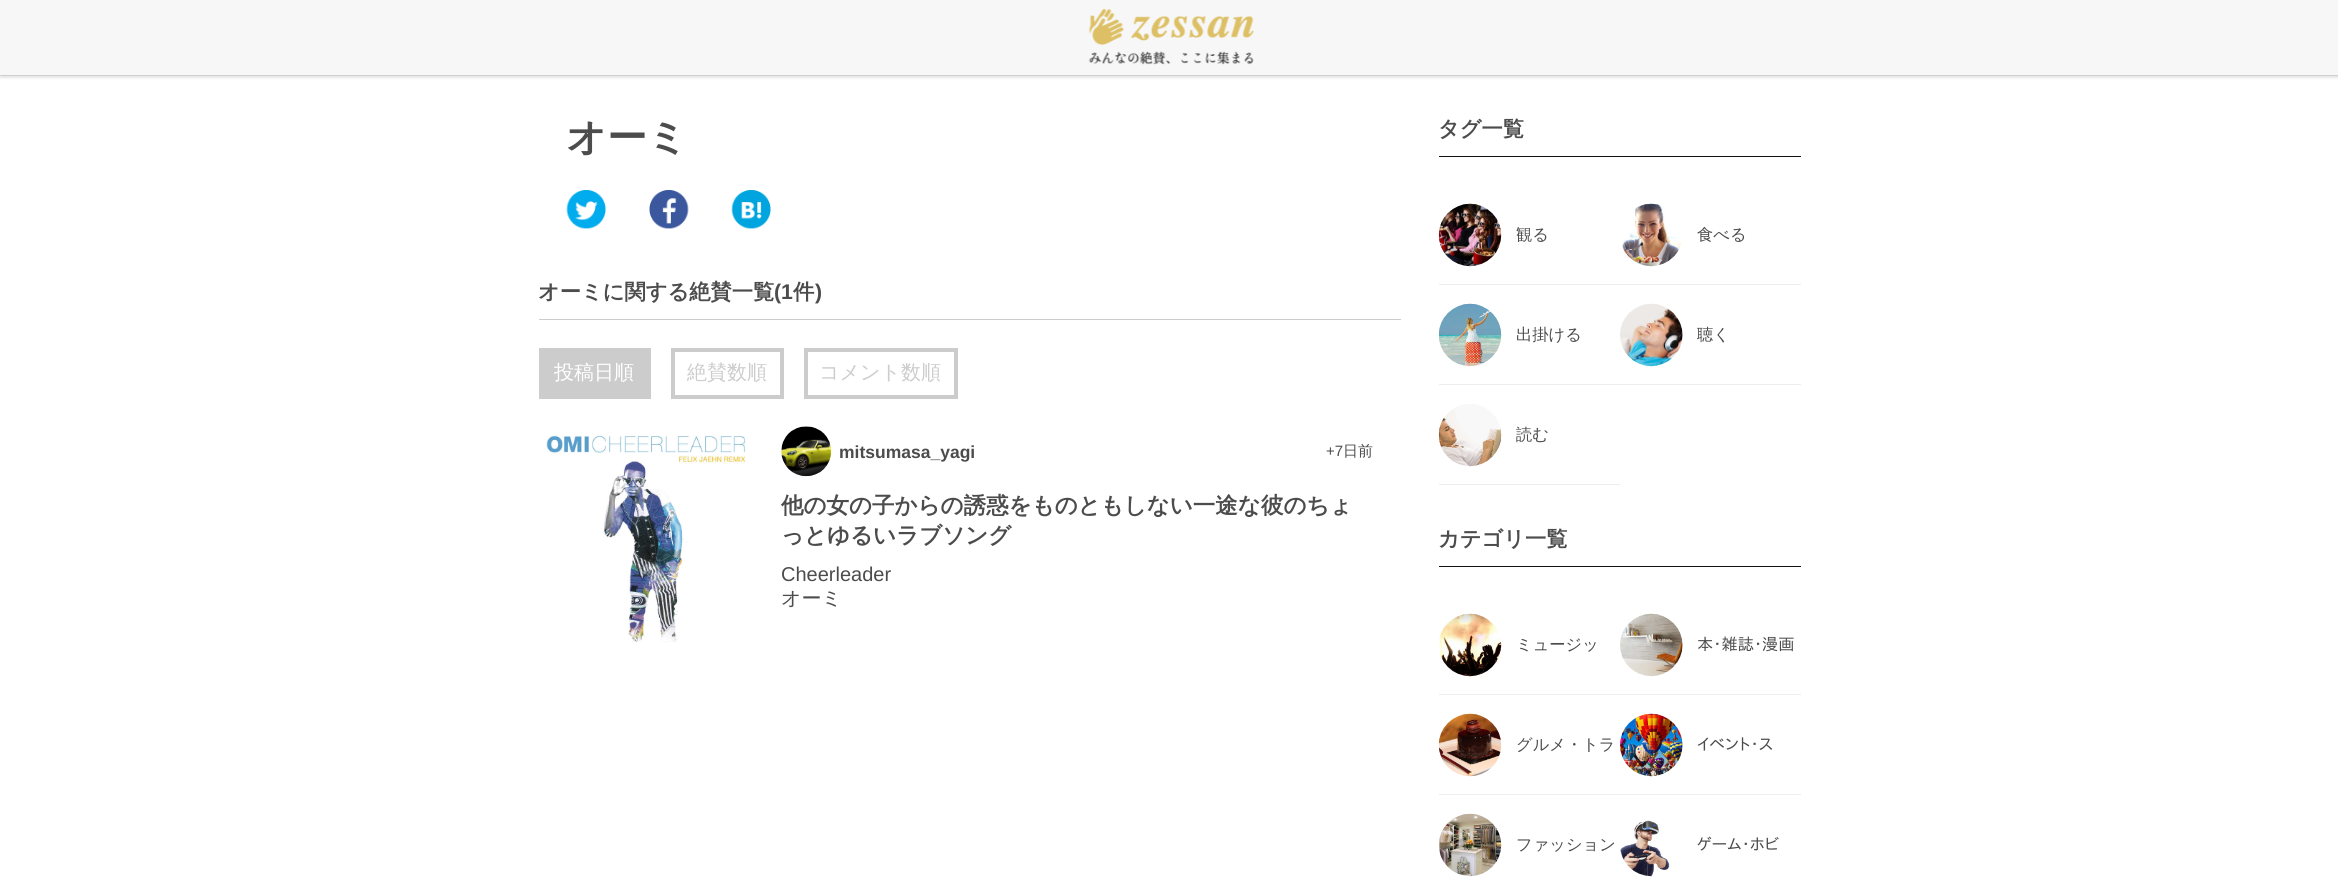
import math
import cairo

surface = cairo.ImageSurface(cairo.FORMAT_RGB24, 2338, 881)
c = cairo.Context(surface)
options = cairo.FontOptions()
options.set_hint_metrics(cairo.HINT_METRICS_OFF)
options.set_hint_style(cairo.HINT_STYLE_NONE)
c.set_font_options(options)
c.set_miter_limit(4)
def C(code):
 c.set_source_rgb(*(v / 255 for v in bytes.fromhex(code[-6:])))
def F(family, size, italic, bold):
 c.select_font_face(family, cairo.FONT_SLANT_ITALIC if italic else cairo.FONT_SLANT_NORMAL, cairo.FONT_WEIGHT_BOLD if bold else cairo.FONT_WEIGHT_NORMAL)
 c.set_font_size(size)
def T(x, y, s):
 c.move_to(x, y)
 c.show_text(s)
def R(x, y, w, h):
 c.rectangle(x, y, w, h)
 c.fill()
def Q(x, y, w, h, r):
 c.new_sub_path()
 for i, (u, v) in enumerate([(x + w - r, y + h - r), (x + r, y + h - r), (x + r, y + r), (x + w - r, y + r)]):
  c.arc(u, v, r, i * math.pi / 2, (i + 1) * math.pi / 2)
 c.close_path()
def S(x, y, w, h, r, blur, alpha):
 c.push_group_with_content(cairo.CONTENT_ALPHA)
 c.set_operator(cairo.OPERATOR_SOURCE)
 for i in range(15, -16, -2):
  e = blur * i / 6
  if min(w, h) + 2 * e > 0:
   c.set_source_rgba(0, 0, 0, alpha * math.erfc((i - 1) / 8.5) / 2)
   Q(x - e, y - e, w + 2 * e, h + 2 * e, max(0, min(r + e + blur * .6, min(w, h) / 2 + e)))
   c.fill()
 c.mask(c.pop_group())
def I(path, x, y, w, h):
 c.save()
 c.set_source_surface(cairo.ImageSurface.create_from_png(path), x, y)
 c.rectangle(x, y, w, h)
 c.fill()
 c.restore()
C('ffffff')
c.paint()
C('e6e6e6')
c.new_path()
c.move_to(0,75)
c.line_to(0,76)
c.line_to(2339,76)
c.line_to(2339,1)
c.line_to(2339,75)
c.close_path()
c.fill()
C('000000')
S(0,3,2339,75,0,1,.1)
C('f7f7f7')
R(0,0,2338,75)
I('1.png',1088,9,166,56)
F('WenQuanYi Zen Hei',40,0,1)
C('4d4c4c')
T(566,151,'オーミ')
I('2.png',566,190,40,39)
I('3.png',649,190,40,39)
I('4.png',731,190,40,39)
C('cccccc')
R(539,319,862,1)
F('WenQuanYi Zen Hei',21.25,0,1)
C('4d4c4c')
T(538,299,'オーミに関する絶賛一覧')
F('Liberation Sans',21.25,0,1)
T(774,299,'(1')
F('WenQuanYi Zen Hei',21.25,0,1)
T(793,299,'件')
F('Liberation Sans',21.25,0,1)
T(815,299,')')
C('cccccc')
R(539,348,112,51)
F('WenQuanYi Zen Hei Medium',20,0,0)
C('ffffff')
T(554,379,'投稿日順')
c.rectangle(673,350,109,47)
C('cccccc')
c.set_line_width(4)
c.stroke()
T(687,379,'絶賛数順')
c.rectangle(806,350,150,47)
c.stroke()
T(819,379,'コメント数順')
I('5.png',545,435,201,208)
I('6.png',781,426,51,51)
F('Liberation Sans',17.5,0,1)
C('4d4c4c')
T(839,458,'mitsumasa_yagi')
F('Liberation Sans',15,0,0)
T(1326,456,'+7')
F('WenQuanYi Zen Hei Medium',15,0,0)
T(1343,456,'日前')
F('WenQuanYi Zen Hei',22.5,0,1)
T(781,513,'他の女の子からの誘惑をものともしない一途な彼のちょ')
T(781,543,'っとゆるいラブソング')
F('Liberation Sans',20,0,0)
T(781,581,'Cheerleader')
F('WenQuanYi Zen Hei Medium',20,0,0)
T(781,605,'オーミ')
C('111111')
R(1439,156,362,1)
F('WenQuanYi Zen Hei',21.25,0,1)
C('4d4c4c')
T(1438,136,'タグ一覧')
C('eeeeee')
R(1439,284,362,1)
I('7.png',1438,203,64,64)
F('WenQuanYi Zen Hei Medium',16.25,0,0)
C('4d4c4c')
T(1516,240,'観る')
I('8.png',1622,203,60,64)
T(1697,240,'食べる')
C('eeeeee')
R(1439,384,362,1)
I('9.png',1438,303,64,64)
C('4d4c4c')
T(1516,340,'出掛ける')
I('10.png',1620,303,63,64)
T(1697,340,'聴く')
C('eeeeee')
R(1439,484,181,1)
I('11.png',1438,404,64,63)
C('4d4c4c')
T(1516,440,'読む')
C('111111')
R(1439,566,362,1)
F('WenQuanYi Zen Hei',21.25,0,1)
C('4d4c4c')
T(1438,546,'カテゴリ一覧')
C('eeeeee')
R(1439,694,362,1)
I('12.png',1439,613,63,64)
F('WenQuanYi Zen Hei Medium',16.25,0,0)
C('4d4c4c')
T(1516,650,'ミュージッ')
I('13.png',1620,613,63,64)
F('IPAPGothic',16.25,0,0)
T(1697,650,'本･雑誌･漫画')
C('eeeeee')
R(1439,794,362,1)
I('14.png',1439,713,63,64)
F('WenQuanYi Zen Hei Medium',16.25,0,0)
C('4d4c4c')
T(1516,750,'グルメ・トラ')
I('15.png',1620,713,63,64)
F('IPAPGothic',16.25,0,0)
T(1697,750,'イベント･ス')
I('16.png',1438,813,64,64)
F('WenQuanYi Zen Hei Medium',16.25,0,0)
T(1516,850,'ファッション')
I('17.png',1620,820,50,57)
F('IPAPGothic',16.25,0,0)
T(1697,850,'ゲーム･ホビ')
surface.write_to_png('o.png')
